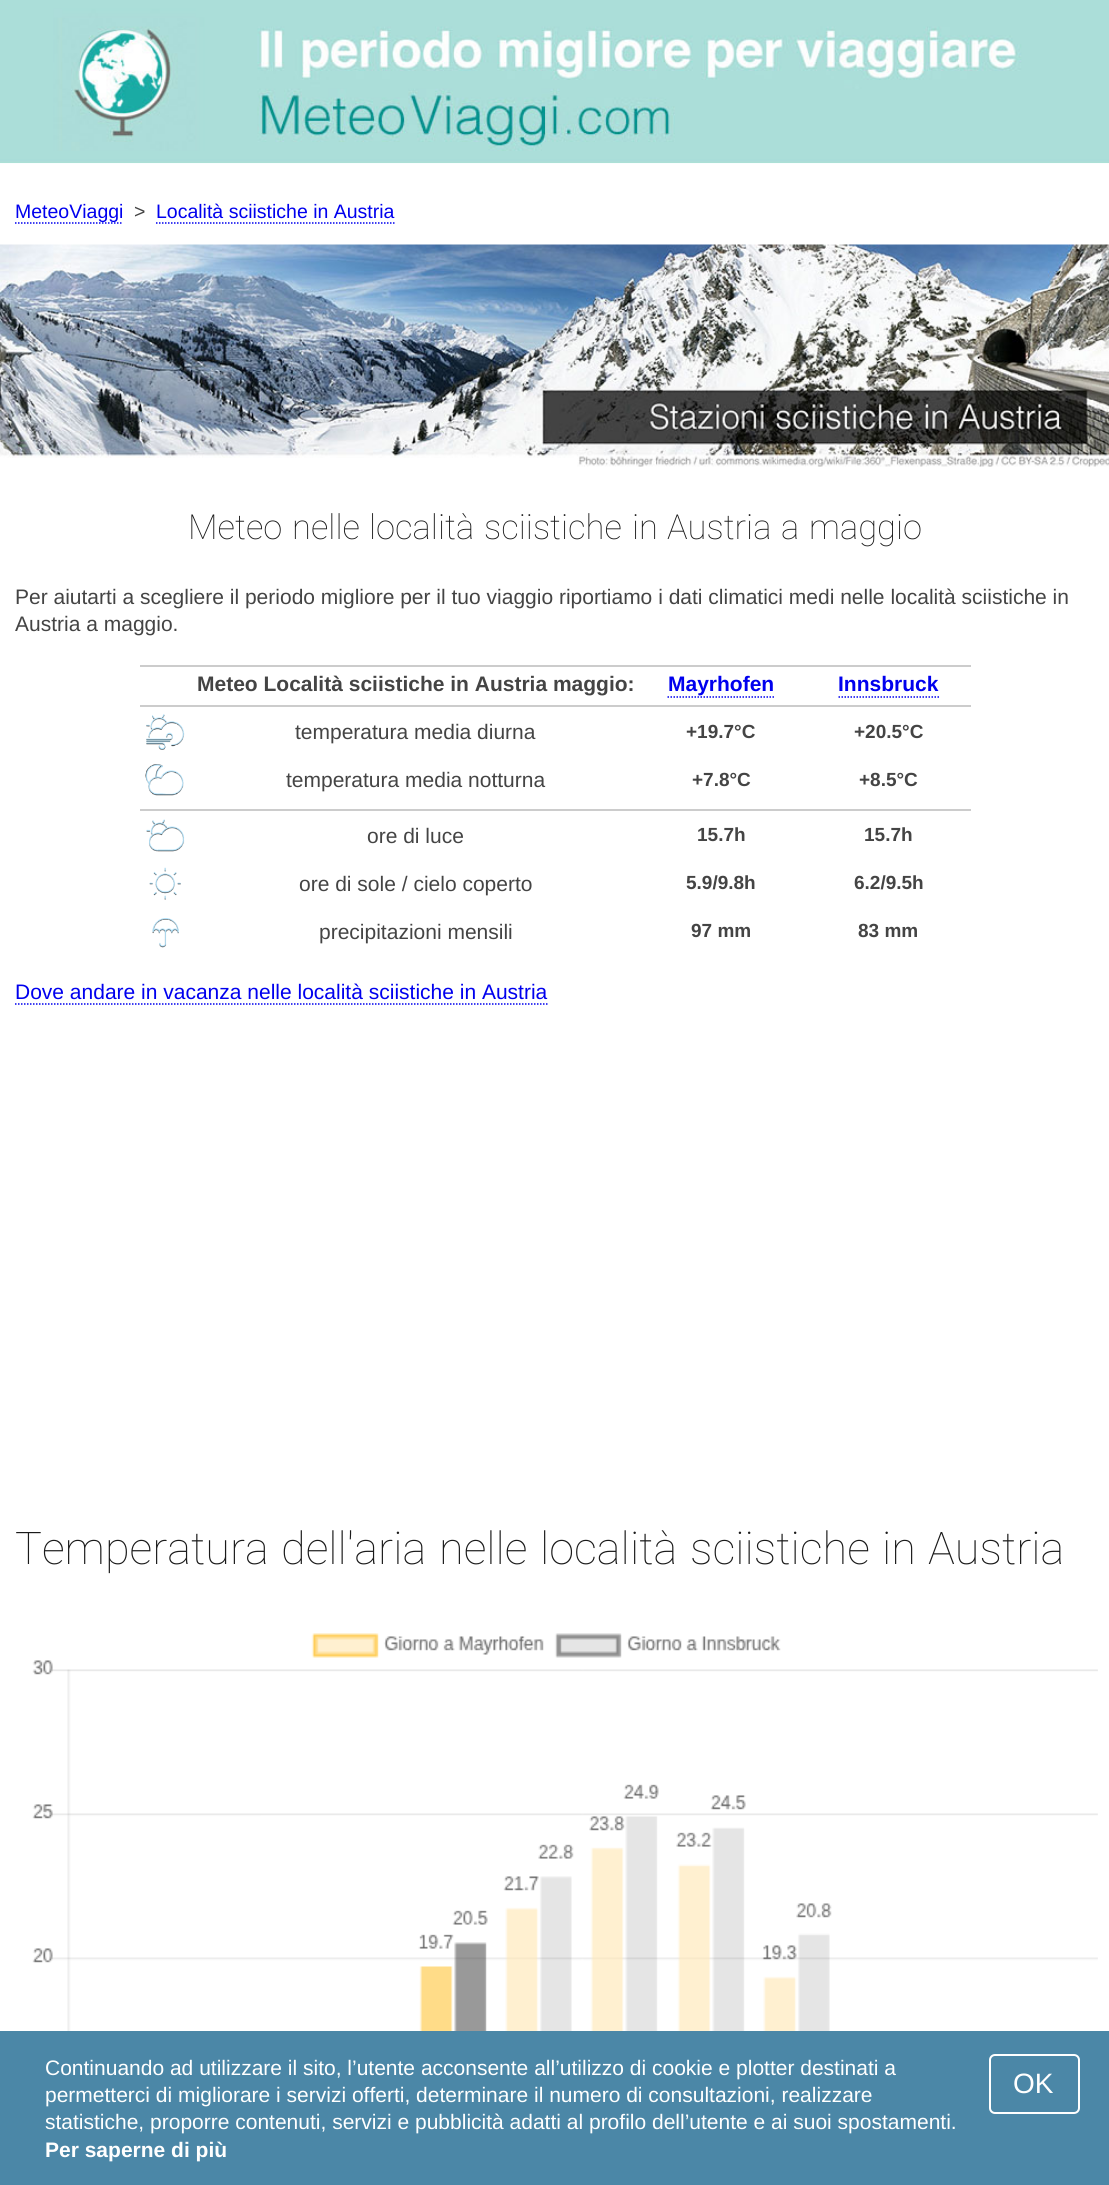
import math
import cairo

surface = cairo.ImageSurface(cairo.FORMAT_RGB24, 1109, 2185)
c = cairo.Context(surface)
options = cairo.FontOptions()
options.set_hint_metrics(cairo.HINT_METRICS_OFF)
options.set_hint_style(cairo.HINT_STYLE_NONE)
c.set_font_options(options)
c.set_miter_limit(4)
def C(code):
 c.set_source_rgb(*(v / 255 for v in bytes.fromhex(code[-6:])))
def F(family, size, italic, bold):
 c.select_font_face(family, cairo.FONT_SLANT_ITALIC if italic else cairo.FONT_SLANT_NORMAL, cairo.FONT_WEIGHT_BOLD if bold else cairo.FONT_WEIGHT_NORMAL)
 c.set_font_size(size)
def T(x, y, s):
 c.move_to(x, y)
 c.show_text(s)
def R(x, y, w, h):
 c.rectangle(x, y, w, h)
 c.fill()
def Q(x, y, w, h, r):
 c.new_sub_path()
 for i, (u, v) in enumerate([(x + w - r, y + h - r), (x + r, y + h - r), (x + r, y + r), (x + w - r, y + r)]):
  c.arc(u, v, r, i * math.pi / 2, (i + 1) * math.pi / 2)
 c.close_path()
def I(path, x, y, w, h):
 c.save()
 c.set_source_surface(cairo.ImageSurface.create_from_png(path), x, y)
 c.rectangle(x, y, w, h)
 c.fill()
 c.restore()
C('ffffff')
c.paint()
I('1.png',0,0,1109,164)
c.new_path()
c.move_to(15,223)
c.line_to(123,223)
C('0000ee')
c.set_line_width(1.5)
c.set_dash([1.5,1.5])
c.stroke()
F('Liberation Sans',19.5,0,0)
T(15,218,'MeteoViaggi')
C('444444')
T(134,218,'>')
C('0000ee')
T(156,218,'Località sciistiche in Austria')
c.new_path()
c.move_to(156,223)
c.line_to(394.5,223)
c.stroke()
I('2.png',0,244,1109,223)
F('Roboto Thin',34.5,0,0)
C('1a1a1a')
T(188,539,'Meteo')
T(292,539,'nelle')
T(369,539,'località')
T(484,539,'sciistiche')
T(632,539,'in')
T(667,539,'Austria')
T(781,539,'a')
T(809,539,'maggio')
F('Liberation Sans',21,0,0)
C('444444')
T(15,604,'Per aiutarti a scegliere il periodo migliore per il tuo viaggio riportiamo i dati climatici medi nelle località sciistiche in')
T(15,631,'Austria a maggio.')
C('cccccc')
R(140,665,831,2)
F('Liberation Sans',21,0,1)
C('444444')
T(197,691,'Meteo Località sciistiche in Austria maggio:')
C('0000ee')
T(668,691,'Mayrhofen')
c.new_path()
c.move_to(667.5,697)
c.line_to(774,697)
c.stroke()
T(838,691,'Innsbruck')
c.new_path()
c.move_to(838.5,697)
c.line_to(939,697)
c.stroke()
C('cccccc')
R(140,705,831,2)
I('3.png',146,714,39,36)
F('Liberation Sans',21,0,0)
C('444444')
T(295,739,'temperatura media diurna')
F('Liberation Sans',19,0,1)
T(686,738,'+19.7°C')
T(854,738,'+20.5°C')
I('4.png',145,764,39,32)
F('Liberation Sans',21,0,0)
T(286,787,'temperatura media notturna')
F('Liberation Sans',19,0,1)
T(692,786,'+7.8°C')
T(859,786,'+8.5°C')
C('cccccc')
R(140,809,831,2)
I('5.png',146,819,39,33)
F('Liberation Sans',21,0,0)
C('444444')
T(367,843,'ore di luce')
F('Liberation Sans',19,0,1)
T(697,841,'15.7h')
T(864,841,'15.7h')
I('6.png',149,867,32,33)
F('Liberation Sans',21,0,0)
T(299,891,'ore di sole / cielo coperto')
F('Liberation Sans',19,0,1)
T(686,889,'5.9/9.8h')
T(854,889,'6.2/9.5h')
I('7.png',152,918,27,30)
F('Liberation Sans',21,0,0)
T(319,939,'precipitazioni mensili')
F('Liberation Sans',19,0,1)
T(691,937,'97 mm')
T(858,937,'83 mm')
F('Liberation Sans',21,0,0)
C('0000ee')
T(15,999,'Dove andare in vacanza nelle località sciistiche in Austria')
c.new_path()
c.move_to(15,1004)
c.line_to(547.5,1004)
c.stroke()
F('Roboto Thin',45,0,0)
C('1a1a1a')
T(15,1564,'Temperatura')
T(281,1564,'dell\'aria')
T(439,1564,'nelle')
T(540,1564,'località')
T(690,1564,'sciistiche')
T(882,1564,'in')
T(928,1564,'Austria')
I('8.png',32,1633,1066,398)
C('4b87a7')
R(0,2031,1109,154)
F('Liberation Sans',21,0,0)
C('ffffff')
T(45,2075,'Continuando ad utilizzare il sito, l’utente acconsente all’utilizzo di cookie e plotter destinati a')
T(45,2102,'permetterci di migliorare i servizi offerti, determinare il numero di consultazioni, realizzare')
T(45,2129,'statistiche, proporre contenuti, servizi e pubblicità adatti al profilo dell’utente e ai suoi spostamenti.')
F('Liberation Sans',21,0,1)
T(45,2157,'Per saperne di più')
Q(990,2055,89,58,5)
c.set_line_width(2)
c.set_dash([])
c.stroke()
F('Liberation Sans',28,0,0)
T(1013,2093,'OK')
surface.write_to_png('o.png')
